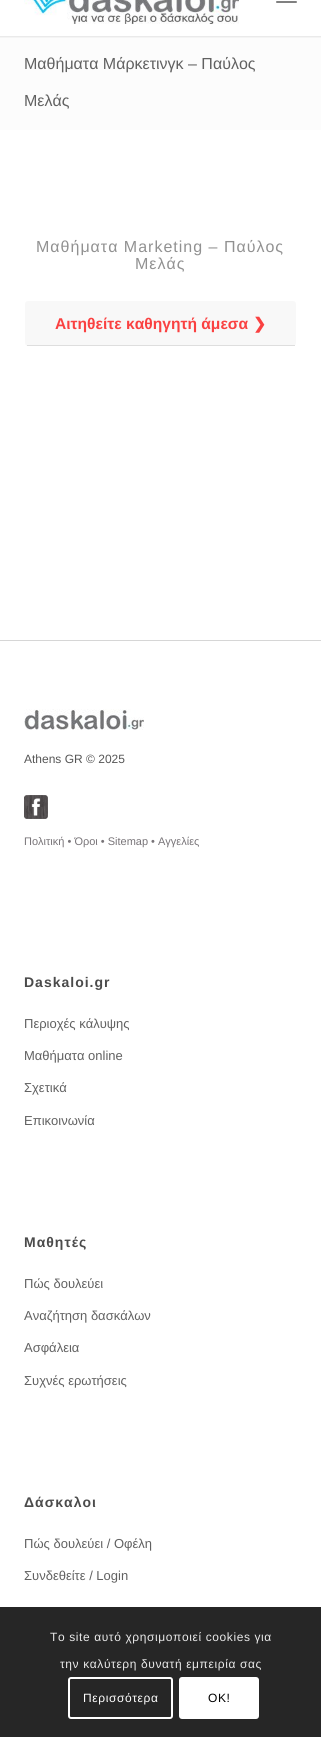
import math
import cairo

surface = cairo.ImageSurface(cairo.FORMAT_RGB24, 321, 1737)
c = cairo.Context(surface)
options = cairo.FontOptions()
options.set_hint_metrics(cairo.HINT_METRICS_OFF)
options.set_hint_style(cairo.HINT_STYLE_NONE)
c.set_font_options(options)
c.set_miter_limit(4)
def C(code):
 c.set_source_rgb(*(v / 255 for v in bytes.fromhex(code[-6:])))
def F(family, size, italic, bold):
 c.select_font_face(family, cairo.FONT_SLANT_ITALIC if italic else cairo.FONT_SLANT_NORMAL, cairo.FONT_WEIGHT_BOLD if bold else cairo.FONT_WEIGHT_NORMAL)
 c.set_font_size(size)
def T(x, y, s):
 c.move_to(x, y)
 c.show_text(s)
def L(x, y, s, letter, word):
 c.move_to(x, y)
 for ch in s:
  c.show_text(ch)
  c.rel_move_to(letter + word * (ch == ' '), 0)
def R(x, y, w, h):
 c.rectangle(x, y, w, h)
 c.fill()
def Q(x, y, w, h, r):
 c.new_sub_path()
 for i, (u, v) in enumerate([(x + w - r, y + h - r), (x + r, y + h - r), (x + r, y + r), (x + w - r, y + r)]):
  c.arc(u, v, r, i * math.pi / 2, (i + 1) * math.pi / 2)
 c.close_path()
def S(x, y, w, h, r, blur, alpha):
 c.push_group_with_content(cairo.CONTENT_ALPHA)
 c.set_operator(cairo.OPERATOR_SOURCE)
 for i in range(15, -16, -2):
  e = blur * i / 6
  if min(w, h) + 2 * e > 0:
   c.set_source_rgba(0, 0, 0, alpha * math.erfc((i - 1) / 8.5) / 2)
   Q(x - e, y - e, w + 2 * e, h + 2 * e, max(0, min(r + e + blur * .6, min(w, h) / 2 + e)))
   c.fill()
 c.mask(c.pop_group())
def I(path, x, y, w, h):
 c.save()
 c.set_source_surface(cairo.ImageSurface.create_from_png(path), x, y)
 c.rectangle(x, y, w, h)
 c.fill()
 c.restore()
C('ffffff')
c.paint()
C('fcfcfc')
R(0,36,321,94)
c.save()
c.rectangle(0,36,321,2)
c.clip()
C('000000')
S(-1,-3,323,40,0,1,.1)
c.restore()
I('1.png',24,0,215,24)
C('808080')
Q(276,1,21,2,1)
c.fill()
F('Liberation Sans',16,0,0)
C('616161')
T(24,69,'Μαθήματα Μάρκετινγκ – Παύλος')
T(24,106,'Μελάς')
C('919191')
L(36,252,'Μαθήματα Marketing – Παύλος',1,0)
L(135,269,'Μελάς',1,0)
C('f8f8f8')
Q(25,301,271,45,3)
c.fill()
C('dedede')
R(27,345,268,1)
F('Liberation Sans',15.6,0,1)
C('fa4141')
T(55,329,'Αιτηθείτε καθηγητή άμεσα')
F('DejaVu Sans',15.6,0,1)
T(253,329,'❯')
C('d6d6d6')
R(0,640,321,1)
I('2.png',24,709,120,21)
F('Liberation Sans',12,0,0)
C('565656')
T(24,763,'Athens GR © 2025')
I('3.png',24,795,24,24)
F('Liberation Sans',11,0,0)
C('787478')
T(24,845,'Πολιτική • Όροι • Sitemap • Αγγελίες')
F('Liberation Sans',14,0,1)
C('4b4b4b')
L(24,987,'Daskaloi.gr',1,0)
F('Liberation Sans',13,0,0)
C('616161')
T(24,1028,'Περιοχές κάλυψης')
T(24,1060,'Μαθήματα online')
T(24,1092,'Σχετικά')
T(24,1125,'Επικοινωνία')
F('Liberation Sans',14,0,1)
C('4b4b4b')
L(24,1247,'Μαθητές',1,0)
F('Liberation Sans',13,0,0)
C('616161')
T(24,1288,'Πώς δουλεύει')
T(24,1320,'Αναζήτηση δασκάλων')
T(24,1352,'Ασφάλεια')
T(24,1385,'Συχνές ερωτήσεις')
F('Liberation Sans',14,0,1)
C('4b4b4b')
L(24,1507,'Δάσκαλοι',1,0)
F('Liberation Sans',13,0,0)
C('616161')
T(24,1548,'Πώς δουλεύει / Οφέλη')
T(24,1580,'Συνδεθείτε / Login')
c.set_source_rgba(0,0,0,0.85)
R(0,1607,321,130)
F('Liberation Sans',12,0,0)
C('e9e9e9')
L(50,1641,'Το site αυτό χρησιμοποιεί cookies για',.6,0)
L(60,1668,'την καλύτερη δυνατή εμπειρία σας',.6,0)
Q(69,1678,103,40,2)
C('ffffff')
c.stroke()
L(83,1702,'Περισσότερα',.6,0)
Q(179,1677,80,42,3)
c.fill()
C('000000')
L(208,1702,'OK!',.6,0)
surface.write_to_png('o.png')
